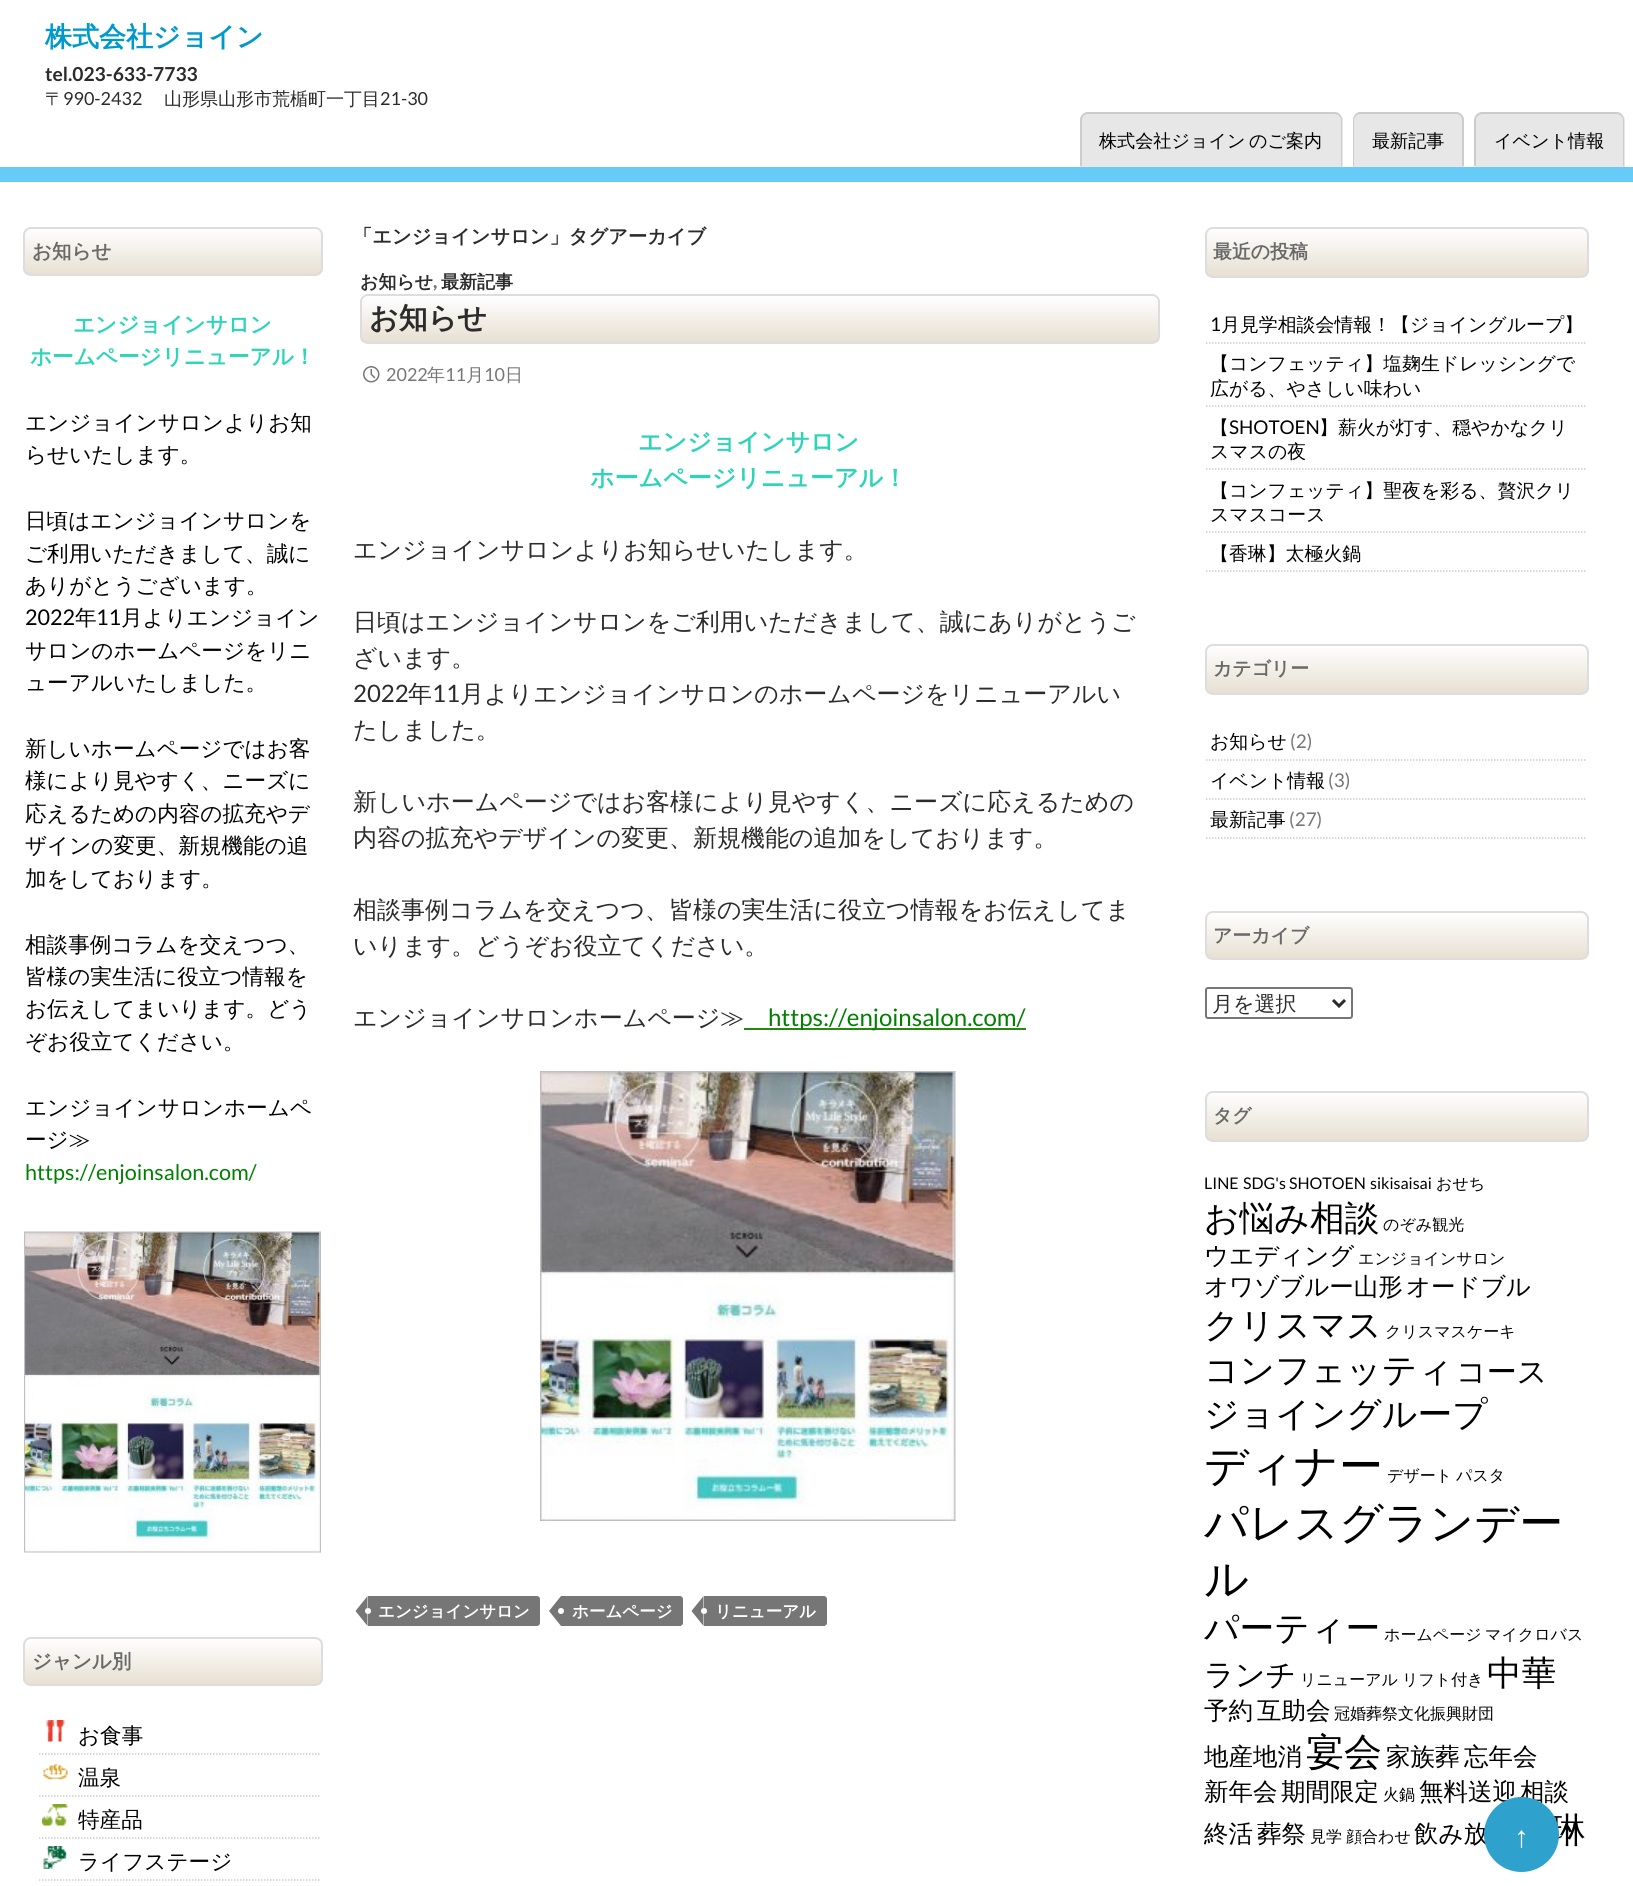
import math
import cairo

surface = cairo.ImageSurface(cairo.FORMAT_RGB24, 1633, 1886)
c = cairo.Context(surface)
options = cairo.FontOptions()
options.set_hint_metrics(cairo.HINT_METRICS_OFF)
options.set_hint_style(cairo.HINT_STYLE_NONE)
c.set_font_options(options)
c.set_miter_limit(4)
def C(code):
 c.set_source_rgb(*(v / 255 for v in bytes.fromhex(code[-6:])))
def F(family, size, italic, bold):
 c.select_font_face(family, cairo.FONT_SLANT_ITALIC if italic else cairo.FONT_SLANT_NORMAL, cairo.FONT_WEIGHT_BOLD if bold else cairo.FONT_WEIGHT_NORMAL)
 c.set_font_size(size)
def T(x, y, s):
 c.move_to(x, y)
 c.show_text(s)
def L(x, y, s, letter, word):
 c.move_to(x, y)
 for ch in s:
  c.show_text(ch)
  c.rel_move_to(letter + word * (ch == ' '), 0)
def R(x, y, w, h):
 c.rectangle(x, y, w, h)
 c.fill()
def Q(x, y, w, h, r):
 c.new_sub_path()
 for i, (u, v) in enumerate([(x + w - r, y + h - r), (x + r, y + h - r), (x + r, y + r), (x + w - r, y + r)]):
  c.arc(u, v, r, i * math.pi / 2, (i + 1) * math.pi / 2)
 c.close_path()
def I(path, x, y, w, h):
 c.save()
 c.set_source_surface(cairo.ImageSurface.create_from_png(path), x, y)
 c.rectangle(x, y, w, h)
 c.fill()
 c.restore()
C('ffffff')
c.paint()
C('66ccf7')
R(0,167,1633,15)
F('WenQuanYi Zen Hei',27,0,1)
C('0099cc')
T(45,46,'株式会社ジョイン')
F('Lato',19.25,0,1)
C('2b2b2b')
T(45,81,'tel.023-633-7733')
F('WenQuanYi Zen Hei Medium',18,0,0)
T(45,105,'〒')
F('Lato',18,0,0)
T(63,105,'990-2432')
F('WenQuanYi Zen Hei Medium',18,0,0)
T(164,105,'山形県山形市荒楯町一丁目')
F('Lato',18,0,0)
T(380,105,'21-30')
C('e7e7e7')
c.new_path()
c.move_to(1088,113)
c.line_to(1335,113)
c.curve_to(1339.5,113,1343,116.5,1343,121)
c.line_to(1343,167)
c.line_to(1080,167)
c.line_to(1080,121)
c.curve_to(1080,116.5,1083.5,113,1088,113)
c.close_path()
c.fill()
C('cccccc')
c.set_fill_rule(cairo.FILL_RULE_EVEN_ODD)
c.new_path()
c.move_to(1088,112)
c.line_to(1335,112)
c.curve_to(1339,112,1342,116,1342,120)
c.line_to(1342,166)
c.line_to(1080,166)
c.line_to(1080,120)
c.curve_to(1080,116,1083,112,1088,112)
c.close_path()
c.move_to(1088,114)
c.line_to(1335,114)
c.curve_to(1338,114,1341,117,1341,120)
c.line_to(1341,166)
c.line_to(1082,166)
c.line_to(1082,120)
c.curve_to(1082,117,1084,114,1088,114)
c.close_path()
c.fill()
F('WenQuanYi Zen Hei Medium',18.1,0,0)
C('000000')
L(1099,147,'株式会社ジョイン のご案内',0,-2)
C('e7e7e7')
c.new_path()
c.move_to(1361,113)
c.line_to(1456,113)
c.curve_to(1460.5,113,1464,116.5,1464,121)
c.line_to(1464,167)
c.line_to(1353,167)
c.line_to(1353,121)
c.curve_to(1353,116.5,1356.5,113,1361,113)
c.close_path()
c.fill()
C('cccccc')
c.new_path()
c.move_to(1360,112)
c.line_to(1456,112)
c.curve_to(1461,112,1464,116,1464,120)
c.line_to(1464,166)
c.line_to(1353,166)
c.line_to(1353,120)
c.curve_to(1353,116,1356,112,1360,112)
c.close_path()
c.move_to(1360,114)
c.line_to(1456,114)
c.curve_to(1460,114,1462,117,1462,120)
c.line_to(1462,166)
c.line_to(1354,166)
c.line_to(1354,120)
c.curve_to(1354,117,1357,114,1360,114)
c.close_path()
c.fill()
C('000000')
T(1372,147,'最新記事')
C('e7e7e7')
c.new_path()
c.move_to(1483,113)
c.line_to(1617,113)
c.curve_to(1621.5,113,1625,116.5,1625,121)
c.line_to(1625,167)
c.line_to(1475,167)
c.line_to(1475,121)
c.curve_to(1475,116.5,1478.5,113,1483,113)
c.close_path()
c.fill()
C('cccccc')
c.new_path()
c.move_to(1482,112)
c.line_to(1617,112)
c.curve_to(1621,112,1624,116,1624,120)
c.line_to(1624,166)
c.line_to(1474,166)
c.line_to(1474,120)
c.curve_to(1474,116,1478,112,1482,112)
c.close_path()
c.move_to(1482,114)
c.line_to(1617,114)
c.curve_to(1620,114,1623,117,1623,120)
c.line_to(1623,166)
c.line_to(1476,166)
c.line_to(1476,120)
c.curve_to(1476,117,1479,114,1482,114)
c.close_path()
c.fill()
C('000000')
T(1494,147,'イベント情報')
c.save()
c.set_fill_rule(cairo.FILL_RULE_WINDING)
Q(23,227,300,49,8)
c.clip()
gradient = cairo.LinearGradient(24,228,24,275)
gradient.add_color_stop_rgba(0,1,1,1,1)
gradient.add_color_stop_rgba(1,0.906,0.878,0.824,1)
c.set_source(gradient)
R(23,228,300,47)
c.restore()
Q(24,228,298,47,7)
C('dddddd')
c.stroke()
F('WenQuanYi Zen Hei',19.5,0,1)
C('696969')
T(32,258,'お知らせ')
F('WenQuanYi Zen Hei',21.6,0,1)
C('2cd4b8')
T(73,332,'エンジョインサロン')
T(30,364,'ホームページリニューアル！')
F('WenQuanYi Zen Hei Medium',21.6,0,0)
C('000000')
T(25,430,'エンジョインサロンよりお知')
T(25,462,'らせいたします。')
T(25,528,'日頃はエンジョインサロンを')
T(25,561,'ご利用いただきまして、誠に')
T(25,593,'ありがとうございます。')
F('Lato',21.6,0,0)
T(25,625,'2022')
F('WenQuanYi Zen Hei Medium',21.6,0,0)
T(75,625,'年')
F('Lato',21.6,0,0)
T(96,625,'11')
F('WenQuanYi Zen Hei Medium',21.6,0,0)
T(121,625,'月よりエンジョイン')
T(25,658,'サロンのホームページをリニ')
T(25,690,'ューアルいたしました。')
T(25,756,'新しいホームページではお客')
T(25,788,'様により見やすく、ニーズに')
T(25,821,'応えるための内容の拡充やデ')
T(25,853,'ザインの変更、新規機能の追')
T(25,886,'加をしております。')
T(25,952,'相談事例コラムを交えつつ、')
T(25,984,'皆様の実生活に役立つ情報を')
T(25,1016,'お伝えしてまいります。どう')
T(25,1049,'ぞお役立てください。')
T(25,1115,'エンジョインサロンホームペ')
T(25,1147,'ージ≫')
F('Lato',21.6,0,0)
C('008000')
T(25,1180,'https://enjoinsalon.com/')
I('1.png',24,1231,297,322)
c.save()
c.set_fill_rule(cairo.FILL_RULE_WINDING)
Q(23,1637,300,49,8)
c.clip()
gradient = cairo.LinearGradient(24,1638,24,1685)
gradient.add_color_stop_rgba(0,1,1,1,1)
gradient.add_color_stop_rgba(1,0.906,0.878,0.824,1)
c.set_source(gradient)
R(23,1638,300,47)
c.restore()
Q(24,1638,298,47,7)
C('dddddd')
c.stroke()
F('WenQuanYi Zen Hei',19.5,0,1)
C('696969')
T(32,1668,'ジャンル別')
c.new_path()
c.move_to(39,1754)
c.line_to(321,1754)
C('cccccc')
c.set_line_width(1.5)
c.set_dash([1.5,1.5])
c.stroke()
I('2.png',46,1720,19,22)
F('WenQuanYi Zen Hei Medium',21.6,0,0)
C('000000')
T(78,1743,'お食事')
c.new_path()
c.move_to(39,1796)
c.line_to(321,1796)
C('cccccc')
c.stroke()
I('3.png',43,1763,25,17)
C('000000')
T(78,1785,'温泉')
c.new_path()
c.move_to(39,1838)
c.line_to(321,1838)
C('cccccc')
c.stroke()
I('4.png',42,1804,26,22)
C('000000')
T(78,1827,'特産品')
c.new_path()
c.move_to(39,1880)
c.line_to(321,1880)
C('cccccc')
c.stroke()
I('5.png',43,1846,24,23)
C('000000')
T(78,1869,'ライフステージ')
F('WenQuanYi Zen Hei',19.25,0,1)
C('2b2b2b')
T(353,243,'「エンジョインサロン」タグアーカイブ')
F('WenQuanYi Zen Hei',18,0,1)
T(360,288,'お知らせ')
F('Lato Black',18,0,0)
C('767676')
T(433,288,',')
F('WenQuanYi Zen Hei',18,0,1)
C('2b2b2b')
T(441,288,'最新記事')
c.save()
c.set_fill_rule(cairo.FILL_RULE_WINDING)
Q(360,294,800,50,8)
c.clip()
gradient = cairo.LinearGradient(362,296,362,342)
gradient.add_color_stop_rgba(0,1,1,1,1)
gradient.add_color_stop_rgba(1,0.906,0.878,0.824,1)
c.set_source(gradient)
R(360,296,800,46)
c.restore()
Q(361,295,798,48,7)
C('dddddd')
c.set_line_width(2)
c.set_dash([])
c.stroke()
F('WenQuanYi Zen Hei',29,0,1)
C('2b2b2b')
T(369,328,'お知らせ')
I('6.png',363,366,17,17)
F('Lato',18,0,0)
C('767676')
T(386,381,'2022')
F('WenQuanYi Zen Hei Medium',18,0,0)
T(427,381,'年')
F('Lato',18,0,0)
T(445,381,'11')
F('WenQuanYi Zen Hei Medium',18,0,0)
T(466,381,'月')
F('Lato',18,0,0)
T(484,381,'10')
F('WenQuanYi Zen Hei Medium',18,0,0)
T(505,381,'日')
F('WenQuanYi Zen Hei',24,0,1)
C('2cd4b8')
T(638,450,'エンジョインサロン')
T(590,486,'ホームページリニューアル！')
F('WenQuanYi Zen Hei Medium',24,0,0)
C('2b2b2b')
T(353,558,'エンジョインサロンよりお知らせいたします。')
T(353,630,'日頃はエンジョインサロンをご利用いただきまして、誠にありがとうご')
T(353,666,'ざいます。')
F('Lato',24,0,0)
T(353,702,'2022')
F('WenQuanYi Zen Hei Medium',24,0,0)
T(408,702,'年')
F('Lato',24,0,0)
T(432,702,'11')
F('WenQuanYi Zen Hei Medium',24,0,0)
T(460,702,'月よりエンジョインサロンのホームページをリニューアルい')
T(353,738,'たしました。')
T(353,810,'新しいホームページではお客様により見やすく、ニーズに応えるための')
T(353,846,'内容の拡充やデザインの変更、新規機能の追加をしております。')
T(353,918,'相談事例コラムを交えつつ、皆様の実生活に役立つ情報をお伝えしてま')
T(353,954,'いります。どうぞお役立てください。')
T(353,1026,'エンジョインサロンホームページ≫')
C('24890d')
R(744,1028,282,2)
F('Lato',24,0,0)
C('008000')
T(768,1026,'https://enjoinsalon.com/')
I('7.png',540,1071,416,450)
C('767676')
c.new_path()
c.move_to(368,1596)
c.line_to(537,1596)
c.curve_to(538.5,1596,540,1597.5,540,1599)
c.line_to(540,1623)
c.curve_to(540,1624.5,538.5,1626,537,1626)
c.line_to(368,1626)
c.close_path()
c.fill()
c.set_fill_rule(cairo.FILL_RULE_WINDING)
c.new_path()
c.move_to(367.5,1596)
c.line_to(367.5,1626)
c.line_to(355.5,1611)
c.close_path()
c.fill()
F('WenQuanYi Zen Hei',16.5,0,1)
C('ffffff')
T(378,1617,'エンジョインサロン')
c.new_path()
c.arc(368,1611,3,0,2 * math.pi)
c.fill()
C('767676')
c.new_path()
c.move_to(561,1596)
c.line_to(680,1596)
c.curve_to(681.5,1596,683,1597.5,683,1599)
c.line_to(683,1623)
c.curve_to(683,1624.5,681.5,1626,680,1626)
c.line_to(561,1626)
c.close_path()
c.fill()
c.new_path()
c.move_to(561,1596)
c.line_to(561,1626)
c.line_to(549,1611)
c.close_path()
c.fill()
C('ffffff')
T(572,1617,'ホームページ')
c.new_path()
c.arc(561,1611,3,0,2 * math.pi)
c.fill()
C('767676')
c.new_path()
c.move_to(704,1596)
c.line_to(824,1596)
c.curve_to(825.5,1596,827,1597.5,827,1599)
c.line_to(827,1623)
c.curve_to(827,1624.5,825.5,1626,824,1626)
c.line_to(704,1626)
c.close_path()
c.fill()
c.new_path()
c.move_to(703.5,1596)
c.line_to(703.5,1626)
c.line_to(691.5,1611)
c.close_path()
c.fill()
C('ffffff')
T(715,1617,'リニューアル')
c.new_path()
c.arc(704,1611,3,0,2 * math.pi)
c.fill()
c.save()
Q(1205,227,384,51,8)
c.clip()
gradient = cairo.LinearGradient(1206,228,1206,276)
gradient.add_color_stop_rgba(0,1,1,1,1)
gradient.add_color_stop_rgba(1,0.906,0.878,0.824,1)
c.set_source(gradient)
R(1205,228,384,48)
c.restore()
Q(1206,228,382,49,7)
C('dddddd')
c.stroke()
F('WenQuanYi Zen Hei',18.9,0,1)
C('696969')
T(1213,258,'最近の投稿')
c.new_path()
c.move_to(1206,343)
c.line_to(1587,343)
C('cccccc')
c.set_line_width(1.5)
c.set_dash([1.5,1.5])
c.stroke()
F('Lato',18.9,0,0)
C('000000')
T(1210,331,'1')
F('WenQuanYi Zen Hei Medium',18.9,0,0)
T(1221,331,'月見学相談会情報！【ジョイングループ】')
c.new_path()
c.move_to(1206,406)
c.line_to(1587,406)
C('cccccc')
c.stroke()
C('000000')
T(1210,370,'【コンフェッティ】塩麹生ドレッシングで')
T(1210,395,'広がる、やさしい味わい')
c.new_path()
c.move_to(1206,469)
c.line_to(1587,469)
C('cccccc')
c.stroke()
C('000000')
T(1210,434,'【')
F('Lato',18.9,0,0)
T(1229,434,'SHOTOEN')
F('WenQuanYi Zen Hei Medium',18.9,0,0)
T(1319,434,'】薪火が灯す、穏やかなクリ')
T(1210,458,'スマスの夜')
c.new_path()
c.move_to(1206,532)
c.line_to(1587,532)
C('cccccc')
c.stroke()
C('000000')
T(1210,497,'【コンフェッティ】聖夜を彩る、贅沢クリ')
T(1210,521,'スマスコース')
c.new_path()
c.move_to(1206,571)
c.line_to(1587,571)
C('cccccc')
c.stroke()
C('000000')
T(1210,560,'【香琳】太極火鍋')
c.save()
Q(1205,644,384,51,8)
c.clip()
gradient = cairo.LinearGradient(1206,645,1206,693)
gradient.add_color_stop_rgba(0,1,1,1,1)
gradient.add_color_stop_rgba(1,0.906,0.878,0.824,1)
c.set_source(gradient)
R(1205,645,384,48)
c.restore()
Q(1206,645,382,49,7)
C('dddddd')
c.set_line_width(2)
c.set_dash([])
c.stroke()
F('WenQuanYi Zen Hei',18.9,0,1)
C('696969')
T(1213,675,'カテゴリー')
c.new_path()
c.move_to(1206,760)
c.line_to(1587,760)
C('cccccc')
c.set_line_width(1.5)
c.set_dash([1.5,1.5])
c.stroke()
F('WenQuanYi Zen Hei Medium',18.9,0,0)
C('000000')
T(1210,748,'お知らせ')
F('Lato',18.9,0,0)
C('767676')
T(1290,748,'(2)')
c.new_path()
c.move_to(1206,799)
c.line_to(1587,799)
C('cccccc')
c.stroke()
F('WenQuanYi Zen Hei Medium',18.9,0,0)
C('000000')
T(1210,787,'イベント情報')
F('Lato',18.9,0,0)
C('767676')
T(1328,787,'(3)')
c.new_path()
c.move_to(1206,838)
c.line_to(1587,838)
C('cccccc')
c.stroke()
F('WenQuanYi Zen Hei Medium',18.9,0,0)
C('000000')
T(1210,826,'最新記事')
F('Lato',18.9,0,0)
C('767676')
T(1289,826,'(27)')
c.save()
Q(1205,911,384,49,8)
c.clip()
gradient = cairo.LinearGradient(1206,912,1206,959)
gradient.add_color_stop_rgba(0,1,1,1,1)
gradient.add_color_stop_rgba(1,0.906,0.878,0.824,1)
c.set_source(gradient)
R(1205,912,384,47)
c.restore()
Q(1206,912,382,47,7)
C('dddddd')
c.set_line_width(2)
c.set_dash([])
c.stroke()
F('WenQuanYi Zen Hei',18.9,0,1)
C('696969')
T(1213,942,'アーカイブ')
Q(1206,988,146,30,2)
C('767676')
c.stroke()
c.new_path()
c.move_to(1333,1000)
c.line_to(1339,1006)
c.line_to(1345,1000)
C('2b2b2b')
c.set_line_width(3)
c.stroke()
F('WenQuanYi Zen Hei Medium',21,0,0)
T(1212,1011,'月を選択')
c.save()
Q(1205,1091,384,51,8)
c.clip()
gradient = cairo.LinearGradient(1206,1092,1206,1140)
gradient.add_color_stop_rgba(0,1,1,1,1)
gradient.add_color_stop_rgba(1,0.906,0.878,0.824,1)
c.set_source(gradient)
R(1205,1092,384,48)
c.restore()
Q(1206,1092,382,49,7)
C('dddddd')
c.set_line_width(2)
c.stroke()
F('WenQuanYi Zen Hei',18.9,0,1)
C('696969')
T(1213,1122,'タグ')
F('Lato',16,0,0)
C('000000')
T(1204,1189,'LINE')
T(1243,1189,'SDG\'s')
T(1289,1189,'SHOTOEN')
T(1370,1189,'sikisaisai')
F('WenQuanYi Zen Hei Medium',16,0,0)
T(1436,1189,'おせち')
F('WenQuanYi Zen Hei Medium',34.75,0,0)
T(1204,1230,'お悩み相談')
F('WenQuanYi Zen Hei Medium',16,0,0)
T(1383,1230,'のぞみ観光')
F('WenQuanYi Zen Hei Medium',24.5,0,0)
T(1204,1264,'ウエディング')
F('WenQuanYi Zen Hei Medium',16,0,0)
T(1358,1264,'エンジョインサロン')
F('WenQuanYi Zen Hei Medium',24.5,0,0)
T(1204,1295,'オワゾブルー山形')
T(1406,1295,'オードブル')
F('WenQuanYi Zen Hei Medium',34.75,0,0)
T(1204,1337,'クリスマス')
F('WenQuanYi Zen Hei Medium',16,0,0)
T(1385,1337,'クリスマスケーキ')
F('WenQuanYi Zen Hei Medium',34.75,0,0)
T(1204,1382,'コンフェッティ')
F('WenQuanYi Zen Hei Medium',30,0,0)
T(1456,1382,'コース')
F('WenQuanYi Zen Hei Medium',34.75,0,0)
T(1204,1426,'ジョイングループ')
F('WenQuanYi Zen Hei Medium',44,0,0)
T(1204,1481,'ディナー')
F('WenQuanYi Zen Hei Medium',16,0,0)
T(1387,1481,'デザート')
T(1456,1481,'パスタ')
F('WenQuanYi Zen Hei Medium',44,0,0)
T(1204,1538,'パレスグランデー')
T(1204,1594,'ル')
F('WenQuanYi Zen Hei Medium',34.75,0,0)
T(1204,1640,'パーティー')
F('WenQuanYi Zen Hei Medium',16,0,0)
T(1384,1640,'ホームページ')
T(1485,1640,'マイクロバス')
F('WenQuanYi Zen Hei Medium',30,0,0)
T(1204,1685,'ランチ')
F('WenQuanYi Zen Hei Medium',16,0,0)
T(1300,1685,'リニューアル')
T(1402,1685,'リフト付き')
F('WenQuanYi Zen Hei Medium',34.75,0,0)
T(1487,1685,'中華')
F('WenQuanYi Zen Hei Medium',24.5,0,0)
T(1204,1719,'予約')
T(1257,1719,'互助会')
F('WenQuanYi Zen Hei Medium',16,0,0)
T(1334,1719,'冠婚葬祭文化振興財団')
F('WenQuanYi Zen Hei Medium',24.5,0,0)
T(1204,1765,'地産地消')
F('WenQuanYi Zen Hei Medium',38,0,0)
T(1306,1765,'宴会')
F('WenQuanYi Zen Hei Medium',24.5,0,0)
T(1386,1765,'家族葬')
T(1464,1765,'忘年会')
T(1204,1800,'新年会')
T(1281,1800,'期間限定')
F('WenQuanYi Zen Hei Medium',16,0,0)
T(1383,1800,'火鍋')
F('WenQuanYi Zen Hei Medium',24.5,0,0)
T(1419,1800,'無料送迎')
T(1520,1800,'相談')
T(1204,1842,'終活')
T(1257,1842,'葬祭')
F('WenQuanYi Zen Hei Medium',16,0,0)
T(1310,1842,'見学')
T(1346,1842,'顔合わせ')
F('WenQuanYi Zen Hei Medium',24.5,0,0)
T(1414,1842,'飲み放')
F('WenQuanYi Zen Hei Medium',34.75,0,0)
T(1551,1842,'琳')
C('2ea2cc')
c.new_path()
c.arc(1521.5,1834.5,37.5,0,2 * math.pi)
c.fill()
F('Liberation Sans',30,0,1)
C('ffffff')
T(1514,1847,'↑')
surface.write_to_png('o.png')
